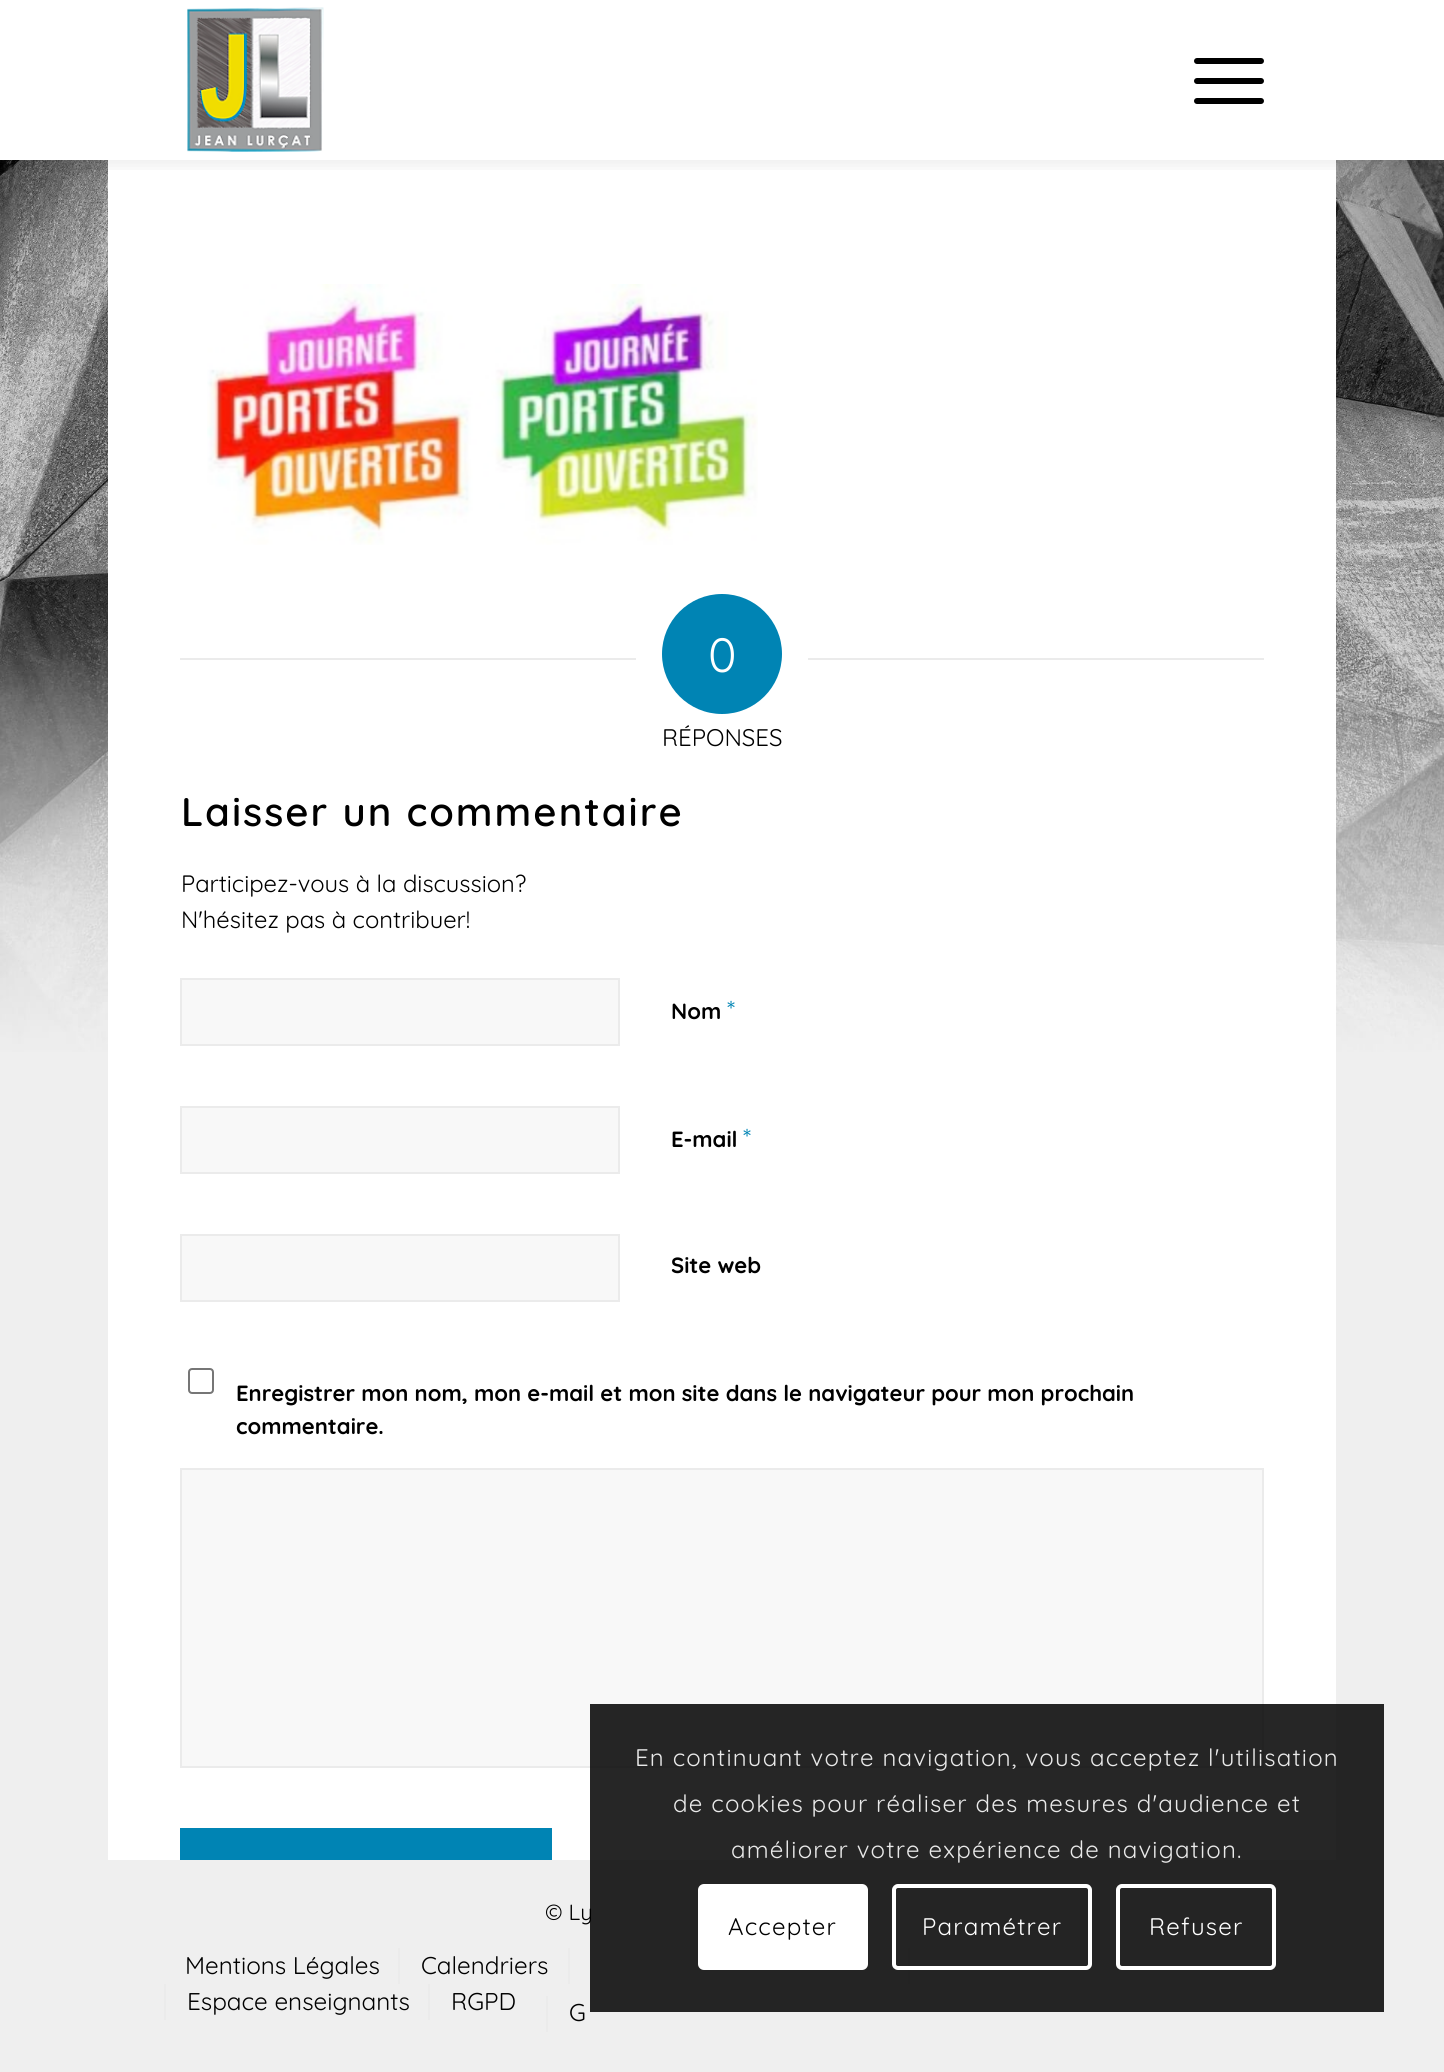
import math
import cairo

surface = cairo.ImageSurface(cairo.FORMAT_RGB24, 1444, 2072)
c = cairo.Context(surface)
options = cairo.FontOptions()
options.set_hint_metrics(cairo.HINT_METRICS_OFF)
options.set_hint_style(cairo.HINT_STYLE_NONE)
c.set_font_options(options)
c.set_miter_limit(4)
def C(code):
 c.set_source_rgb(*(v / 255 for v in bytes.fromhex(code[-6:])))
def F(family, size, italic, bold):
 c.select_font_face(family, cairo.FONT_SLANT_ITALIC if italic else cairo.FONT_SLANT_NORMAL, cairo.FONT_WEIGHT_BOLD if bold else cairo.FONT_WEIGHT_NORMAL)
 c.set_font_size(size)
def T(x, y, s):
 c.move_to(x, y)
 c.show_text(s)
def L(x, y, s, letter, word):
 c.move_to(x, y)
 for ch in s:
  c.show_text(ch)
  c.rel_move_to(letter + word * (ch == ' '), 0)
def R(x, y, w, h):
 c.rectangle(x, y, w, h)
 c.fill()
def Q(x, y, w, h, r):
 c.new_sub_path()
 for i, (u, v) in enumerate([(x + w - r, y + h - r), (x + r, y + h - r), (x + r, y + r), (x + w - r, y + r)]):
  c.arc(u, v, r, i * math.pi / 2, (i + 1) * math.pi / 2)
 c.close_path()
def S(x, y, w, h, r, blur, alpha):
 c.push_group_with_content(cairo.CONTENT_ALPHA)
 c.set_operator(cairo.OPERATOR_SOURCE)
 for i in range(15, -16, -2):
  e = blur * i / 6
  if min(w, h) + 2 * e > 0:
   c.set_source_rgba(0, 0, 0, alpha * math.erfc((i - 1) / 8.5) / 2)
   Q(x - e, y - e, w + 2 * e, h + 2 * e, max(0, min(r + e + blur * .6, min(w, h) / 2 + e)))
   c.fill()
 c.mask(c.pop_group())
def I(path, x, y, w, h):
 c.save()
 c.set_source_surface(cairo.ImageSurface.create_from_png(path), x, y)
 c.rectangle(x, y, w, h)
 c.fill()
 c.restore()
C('ffffff')
c.paint()
I('2.png',0,160,1444,892)
C('efefef')
R(0,1052,1444,1020)
C('ffffff')
R(108,160,1228,1700)
c.save()
c.rectangle(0,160,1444,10)
c.clip()
C('000000')
S(-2,-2,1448,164,0,10,.1)
c.restore()
I('1.png',187,7,137,145)
C('000000')
Q(1194,78,70,6,3)
c.fill()
Q(1194,58,70,6,3)
c.fill()
Q(1194,98,70,6,3)
c.fill()
I('3.png',207,284,551,261)
C('ebebeb')
R(180,658,456,2)
C('0084b4')
c.arc(722,654,60,0,2 * math.pi)
c.fill()
F('Quicksand',48,0,0)
C('ffffff')
T(708,672,'0')
C('ebebeb')
R(808,658,456,2)
F('Quicksand',24,0,0)
C('000000')
T(662,746,'RÉPONSES')
F('Quicksand SemiBold',40,0,0)
L(181,826,'Laisser un commentaire',2,0)
F('Quicksand',23.75,0,0)
T(181,892,'Participez-vous à la discussion?')
T(181,928,'N\'hésitez pas à contribuer!')
C('f8f8f8')
c.rectangle(181,979,438,66)
c.fill_preserve()
C('ebebeb')
c.stroke()
F('Quicksand',22,0,1)
C('000000')
T(671,1019,'Nom')
F('Quicksand',26,0,0)
C('0084b4')
T(727,1019,'*')
C('f8f8f8')
c.rectangle(181,1107,438,66)
c.fill_preserve()
C('ebebeb')
c.stroke()
F('Quicksand',22,0,1)
C('000000')
T(671,1147,'E-mail')
F('Quicksand',26,0,0)
C('0084b4')
T(743,1147,'*')
C('f8f8f8')
c.rectangle(181,1235,438,66)
c.fill_preserve()
C('ebebeb')
c.stroke()
F('Quicksand',22,0,1)
C('000000')
T(671,1273,'Site web')
Q(189,1369,24,24,3)
C('767676')
c.stroke()
C('000000')
T(236,1401,'Enregistrer mon nom, mon e-mail et mon site dans le navigateur pour mon prochain')
T(236,1434,'commentaire.')
C('f8f8f8')
c.rectangle(181,1469,1082,298)
c.fill_preserve()
C('ebebeb')
c.stroke()
C('0084b4')
R(180,1828,372,32)
F('Quicksand',22,0,0)
C('000000')
T(545,1920,'© Ly')
F('Quicksand',24.25,0,0)
T(185,1974,'Mentions Légales')
C('ebebeb')
R(398,1948,2,36)
C('000000')
T(421,1974,'Calendriers')
C('ebebeb')
R(568,1948,2,36)
R(908,1948,2,36)
R(164,1984,2,36)
C('000000')
T(187,2010,'Espace enseignants')
C('ebebeb')
R(428,1984,2,36)
C('000000')
T(451,2010,'RGPD')
C('ebebeb')
R(546,1996,2,36)
C('000000')
T(569,2021,'G')
c.set_source_rgba(0,0,0,0.85)
R(590,1704,794,308)
F('Quicksand',24,0,0)
C('e9e9e9')
L(635,1766,'En continuant votre navigation, vous acceptez l\'utilisation',1.2,0)
L(673,1812,'de cookies pour réaliser des mesures d\'audience et',1.2,0)
L(731,1858,'améliorer votre expérience de navigation.',1.2,0)
C('ffffff')
Q(698,1884,170,86,6)
c.fill()
C('000000')
L(728,1935,'Accepter',1.2,0)
Q(894,1886,196,82,4)
C('ffffff')
c.set_line_width(4)
c.stroke()
L(922,1935,'Paramétrer',1.2,0)
Q(1118,1886,156,82,4)
c.stroke()
L(1149,1935,'Refuser',1.2,0)
surface.write_to_png('o.png')
